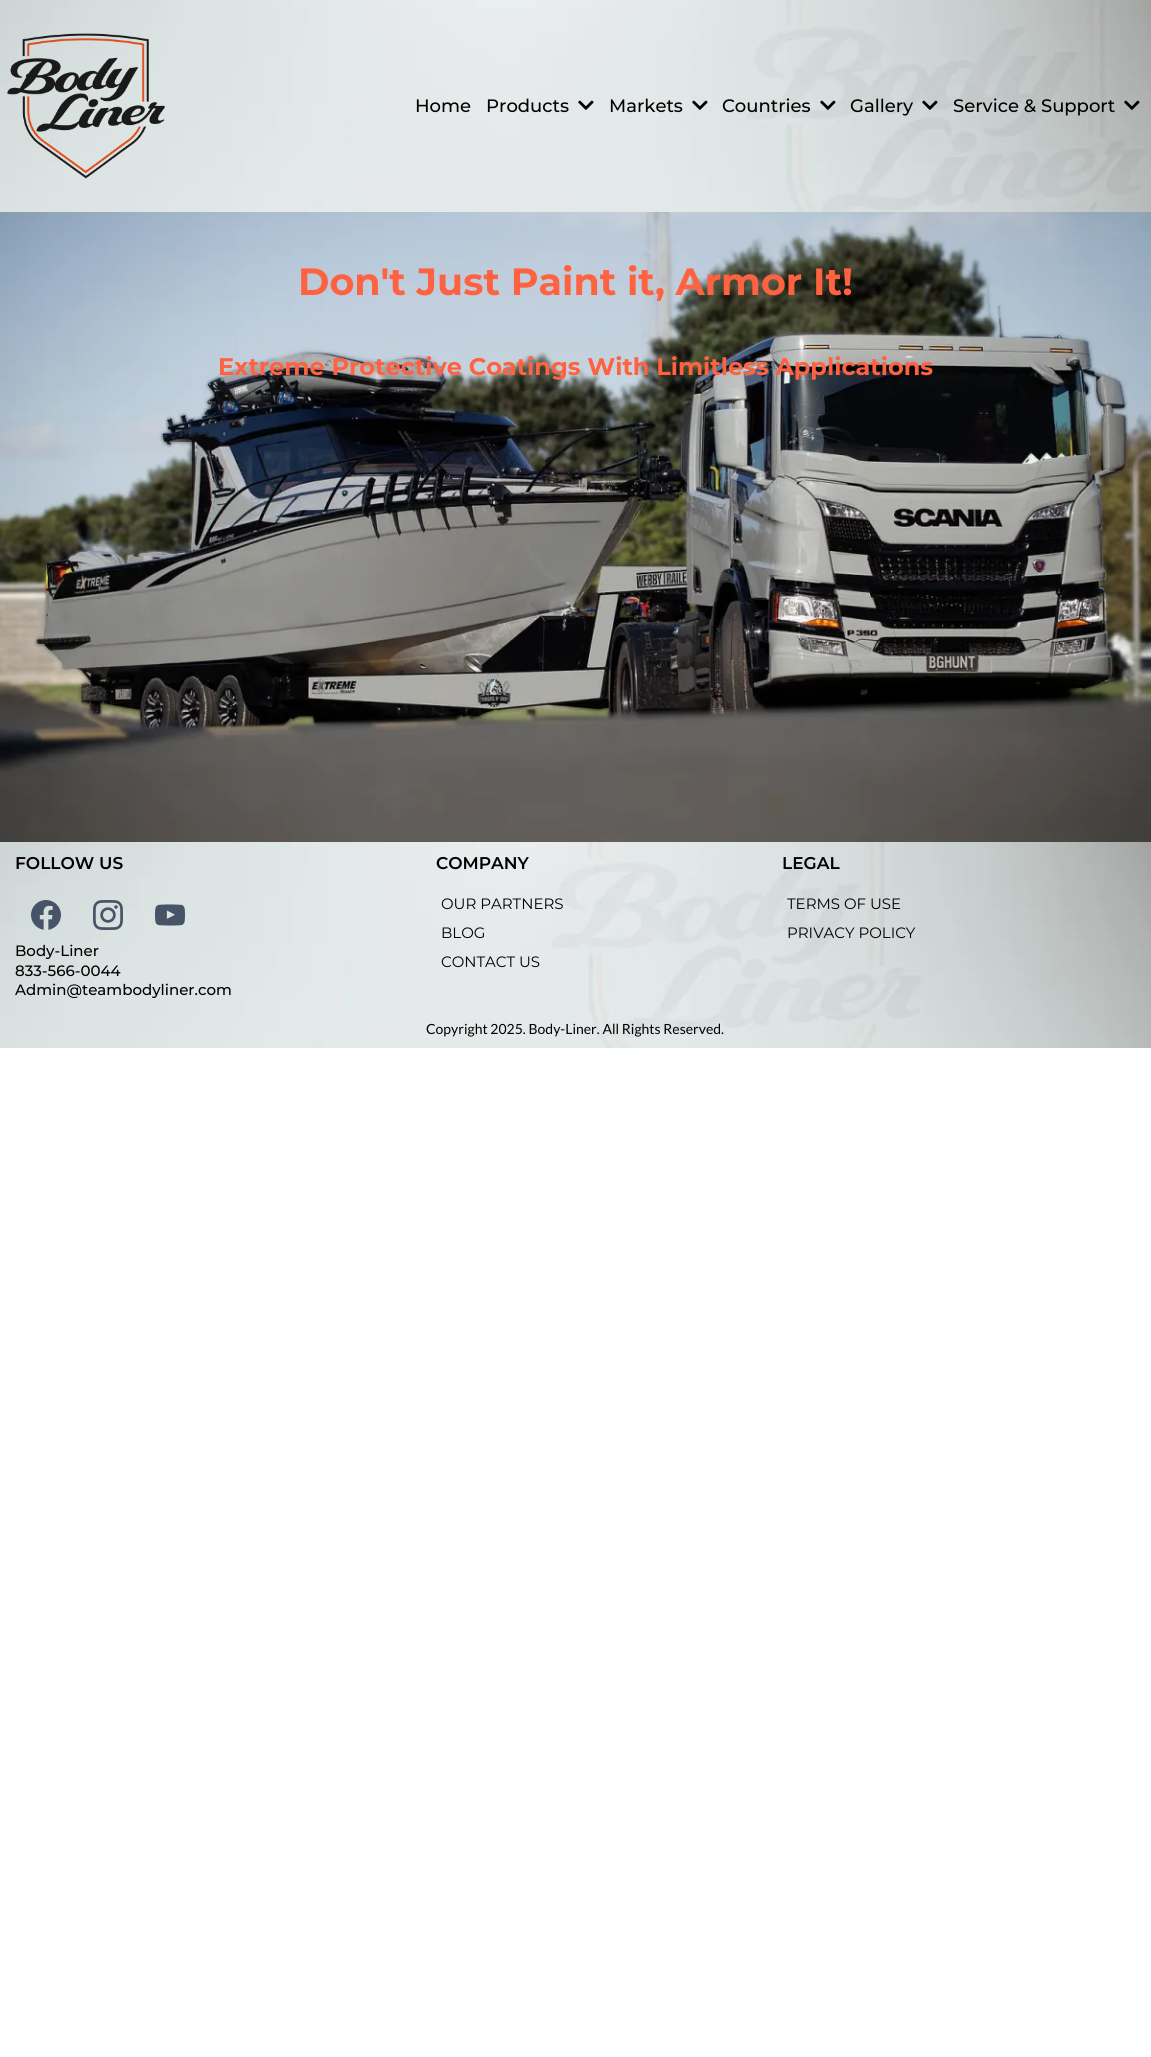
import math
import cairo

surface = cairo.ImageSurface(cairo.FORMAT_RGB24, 1151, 2057)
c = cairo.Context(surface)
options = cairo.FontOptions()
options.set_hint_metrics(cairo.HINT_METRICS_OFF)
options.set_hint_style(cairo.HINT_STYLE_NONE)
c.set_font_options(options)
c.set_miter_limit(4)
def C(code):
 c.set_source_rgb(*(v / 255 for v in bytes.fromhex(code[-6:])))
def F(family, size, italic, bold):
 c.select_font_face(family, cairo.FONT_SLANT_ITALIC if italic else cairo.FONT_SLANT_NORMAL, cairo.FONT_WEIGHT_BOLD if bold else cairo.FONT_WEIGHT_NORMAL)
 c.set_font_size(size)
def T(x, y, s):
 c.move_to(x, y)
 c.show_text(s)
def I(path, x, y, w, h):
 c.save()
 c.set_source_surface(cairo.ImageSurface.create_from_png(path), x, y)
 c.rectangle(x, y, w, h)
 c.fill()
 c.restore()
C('ffffff')
c.paint()
I('1.png',0,0,1151,212)
I('2.png',7,33,158,146)
F('Montserrat Medium',18,0,0)
C('000000')
T(415,112,'Home')
T(486,112,'Products')
I('3.png',578,100,16,10)
T(609,112,'Markets')
I('4.png',692,100,16,10)
T(722,112,'Countries')
I('5.png',820,100,16,10)
T(850,112,'Gallery')
I('6.png',922,100,16,10)
T(953,112,'Service & Support')
I('7.png',1124,100,16,10)
I('8.png',0,212,1151,630)
F('Montserrat',38,0,1)
C('ff6240')
T(298,295,'Don\'t Just Paint it, Armor It!')
F('Montserrat',24,0,1)
T(218,375,'Extreme Protective Coatings With Limitless Applications')
I('9.png',0,842,1151,206)
F('Montserrat SemiBold',17,0,0)
C('000000')
T(15,869,'FOLLOW US')
I('10.png',31,900,30,30)
I('11.png',93,900,30,30)
I('12.png',155,904,30,22)
F('Montserrat Medium',15,0,0)
T(15,956,'Body-Liner')
T(15,976,'833-566-0044')
T(15,995,'Admin@teambodyliner.com')
F('Montserrat SemiBold',17,0,0)
T(436,869,'COMPANY')
F('Montserrat',15,0,0)
T(441,909,'OUR PARTNERS')
T(441,938,'BLOG')
T(441,967,'CONTACT US')
F('Montserrat SemiBold',17,0,0)
T(782,869,'LEGAL')
F('Montserrat',15,0,0)
T(787,909,'TERMS OF USE')
T(787,938,'PRIVACY POLICY')
F('Lato',14,0,0)
T(426,1034,'Copyright 2025. Body-Liner. All Rights Reserved.')
surface.write_to_png('o.png')
